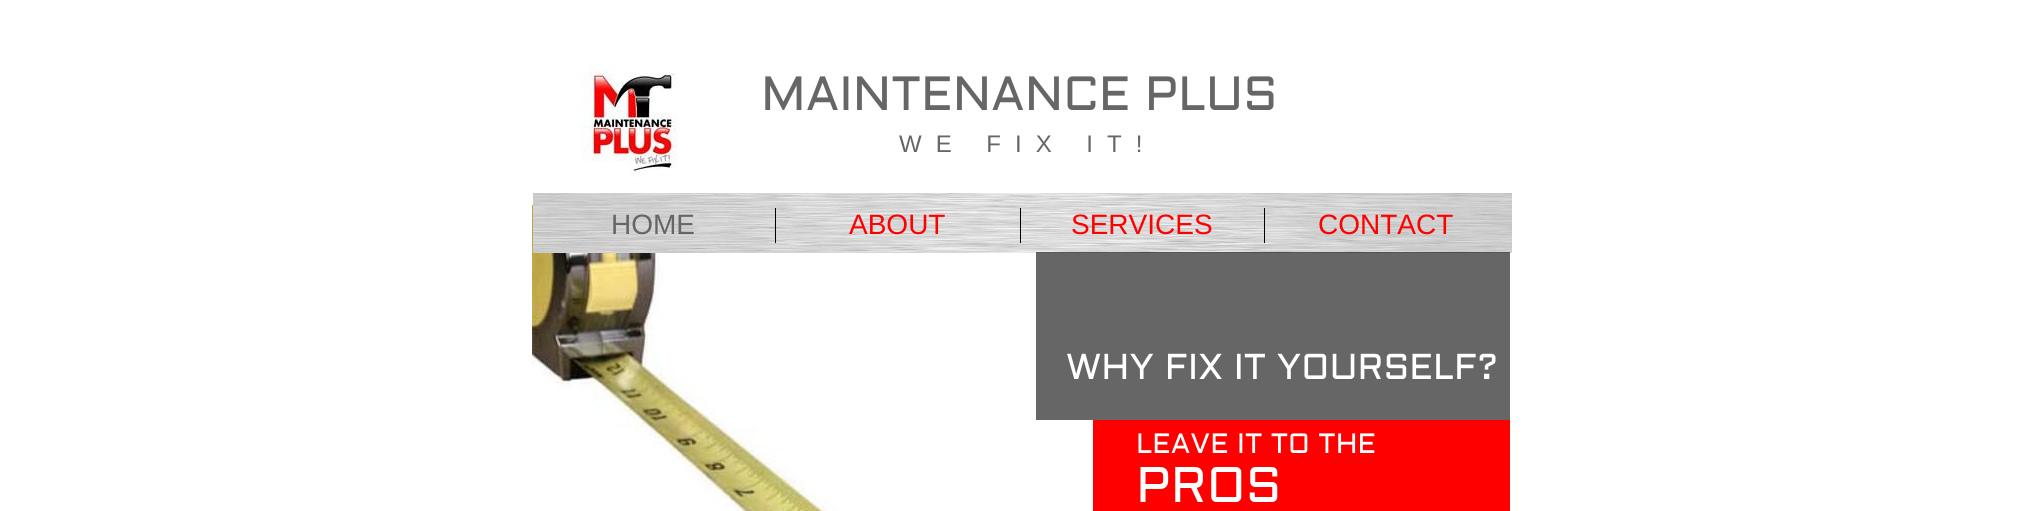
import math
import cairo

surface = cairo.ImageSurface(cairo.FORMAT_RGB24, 2044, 511)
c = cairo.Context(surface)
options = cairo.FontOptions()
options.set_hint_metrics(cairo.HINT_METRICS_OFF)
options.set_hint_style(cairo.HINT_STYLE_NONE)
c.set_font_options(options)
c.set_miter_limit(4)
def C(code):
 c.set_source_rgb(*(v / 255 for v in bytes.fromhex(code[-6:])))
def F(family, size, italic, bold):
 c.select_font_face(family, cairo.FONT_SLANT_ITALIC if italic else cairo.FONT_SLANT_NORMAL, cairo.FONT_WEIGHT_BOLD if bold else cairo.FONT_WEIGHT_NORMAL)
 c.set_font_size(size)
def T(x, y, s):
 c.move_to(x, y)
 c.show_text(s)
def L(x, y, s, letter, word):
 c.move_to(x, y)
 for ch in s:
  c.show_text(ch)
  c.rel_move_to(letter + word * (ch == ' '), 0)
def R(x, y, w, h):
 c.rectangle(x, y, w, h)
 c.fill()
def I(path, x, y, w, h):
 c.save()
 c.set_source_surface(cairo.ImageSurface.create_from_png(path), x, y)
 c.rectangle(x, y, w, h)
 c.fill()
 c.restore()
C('ffffff')
c.paint()
I('1.png',580,65,98,112)
F('Aldrich',48,0,0)
C('666666')
T(761,110,'MAINTENANCE PLUS')
F('Liberation Sans',24,0,0)
L(899,152,'WE FIX IT!',14,0)
I('3.png',532,205,314,306)
I('2.png',533,193,979,60)
F('Liberation Sans',28,0,0)
T(611,234,'HOME')
C('000000')
R(775,208,1,35)
C('ff0000')
T(849,234,'ABOUT')
C('000000')
R(1020,208,1,35)
C('ff0000')
T(1071,234,'SERVICES')
C('000000')
R(1264,208,1,35)
C('ff0000')
T(1318,234,'CONTACT')
c.set_source_rgba(0,0,0,0.6)
R(1036,252,474,168)
F('Aldrich',36,0,0)
C('ffffff')
T(1066,379,'WHY FIX IT YOURSELF?')
C('ff0000')
R(1093,420,417,91)
F('Aldrich',28,0,0)
C('ffffff')
T(1136,453,'LEAVE IT TO THE')
F('Aldrich',50,0,0)
T(1136,502,'PROS')
surface.write_to_png('o.png')
